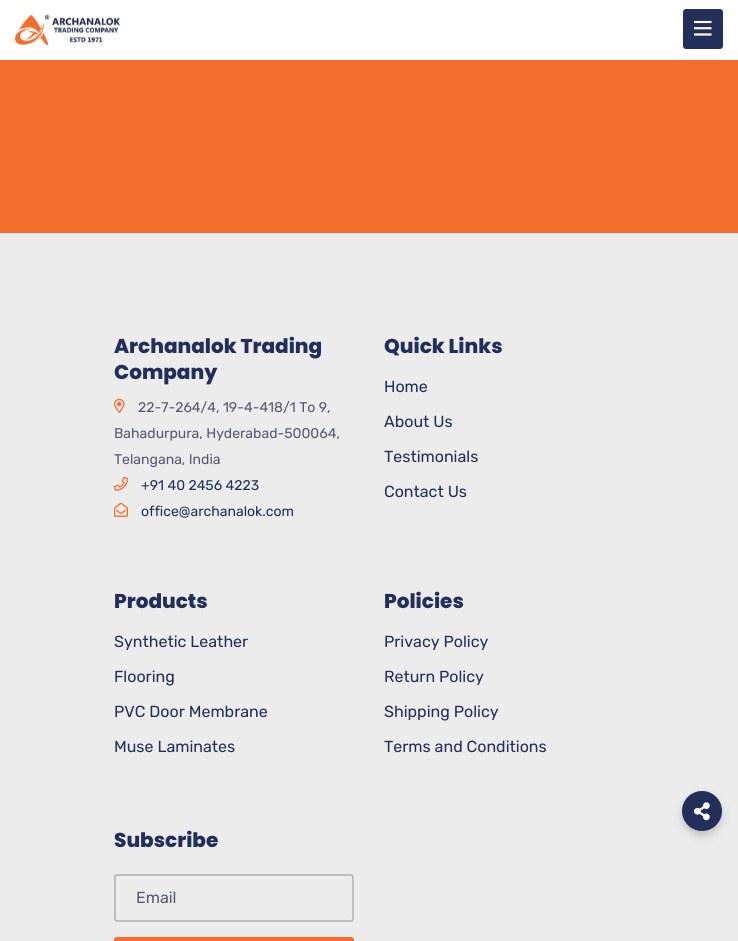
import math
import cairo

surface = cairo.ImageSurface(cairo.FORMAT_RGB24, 738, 941)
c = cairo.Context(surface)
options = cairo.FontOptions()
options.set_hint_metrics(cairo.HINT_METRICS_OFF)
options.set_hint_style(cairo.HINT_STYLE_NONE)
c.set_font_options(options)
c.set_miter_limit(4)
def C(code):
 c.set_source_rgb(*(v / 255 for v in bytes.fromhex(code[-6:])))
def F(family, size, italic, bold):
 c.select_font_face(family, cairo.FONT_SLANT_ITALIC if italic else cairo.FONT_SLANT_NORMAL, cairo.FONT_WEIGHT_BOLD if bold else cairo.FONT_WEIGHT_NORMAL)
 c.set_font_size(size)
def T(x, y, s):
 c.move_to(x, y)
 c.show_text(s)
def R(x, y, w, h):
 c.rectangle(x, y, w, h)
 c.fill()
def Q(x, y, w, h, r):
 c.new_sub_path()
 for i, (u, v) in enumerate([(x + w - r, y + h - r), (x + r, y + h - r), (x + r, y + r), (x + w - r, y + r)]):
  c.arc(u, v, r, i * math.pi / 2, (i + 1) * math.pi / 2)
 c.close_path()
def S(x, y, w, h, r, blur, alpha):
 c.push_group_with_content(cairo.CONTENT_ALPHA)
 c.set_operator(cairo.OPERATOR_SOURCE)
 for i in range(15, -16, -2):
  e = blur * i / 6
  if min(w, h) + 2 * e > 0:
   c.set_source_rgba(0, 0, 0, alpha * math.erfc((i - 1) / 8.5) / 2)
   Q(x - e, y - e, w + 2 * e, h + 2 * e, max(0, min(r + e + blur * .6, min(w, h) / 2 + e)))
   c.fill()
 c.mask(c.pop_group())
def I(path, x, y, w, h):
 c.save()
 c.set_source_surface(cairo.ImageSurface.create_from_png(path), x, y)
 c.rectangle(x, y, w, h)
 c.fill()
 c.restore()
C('f36e2d')
c.paint()
C('ffffff')
R(0,0,738,60)
I('1.png',15,14,105,31)
C('222f5a')
Q(683,9,40,40,3)
c.fill()
I('2.png',694,20,18,16)
C('ececec')
R(0,233,738,708)
F('Poppins ExtraBold',20,0,0)
C('222f5a')
T(114,353,'Archanalok Trading')
T(114,379,'Company')
I('3.png',114,398,11,15)
F('Rubik',14,0,0)
C('565872')
T(138,412,'22-7-264/4, 19-4-418/1 To 9,')
T(114,438,'Bahadurpura, Hyderabad-500064,')
T(114,464,'Telangana, India')
I('4.png',114,476,14,15)
C('222f5a')
T(141,490,'+91 40 2456 4223')
I('5.png',114,502,14,15)
T(141,516,'office@archanalok.com')
F('Poppins ExtraBold',20,0,0)
T(384,353,'Quick Links')
F('Rubik',16,0,0)
T(384,392,'Home')
T(384,427,'About Us')
T(384,462,'Testimonials')
T(384,497,'Contact Us')
F('Poppins ExtraBold',20,0,0)
T(114,608,'Products')
F('Rubik',16,0,0)
T(114,647,'Synthetic Leather')
T(114,682,'Flooring')
T(114,717,'PVC Door Membrane')
T(114,752,'Muse Laminates')
F('Poppins ExtraBold',20,0,0)
T(384,608,'Policies')
F('Rubik',16,0,0)
T(384,647,'Privacy Policy')
T(384,682,'Return Policy')
T(384,717,'Shipping Policy')
T(384,752,'Terms and Conditions')
F('Poppins ExtraBold',20,0,0)
T(114,847,'Subscribe')
Q(115,875,238,46,2)
C('bdbdbd')
c.stroke()
F('Rubik',16,0,0)
C('565872')
T(136,903,'Email')
C('f36e2d')
Q(114,937,240,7,3)
c.fill()
C('000000')
S(689,802,26,26,13,6,.15)
S(684,798,36,36,18,5.5,.18)
C('222f5a')
c.arc(702,811,20,0,2 * math.pi)
c.fill()
I('6.png',694,802,16,19)
surface.write_to_png('o.png')
